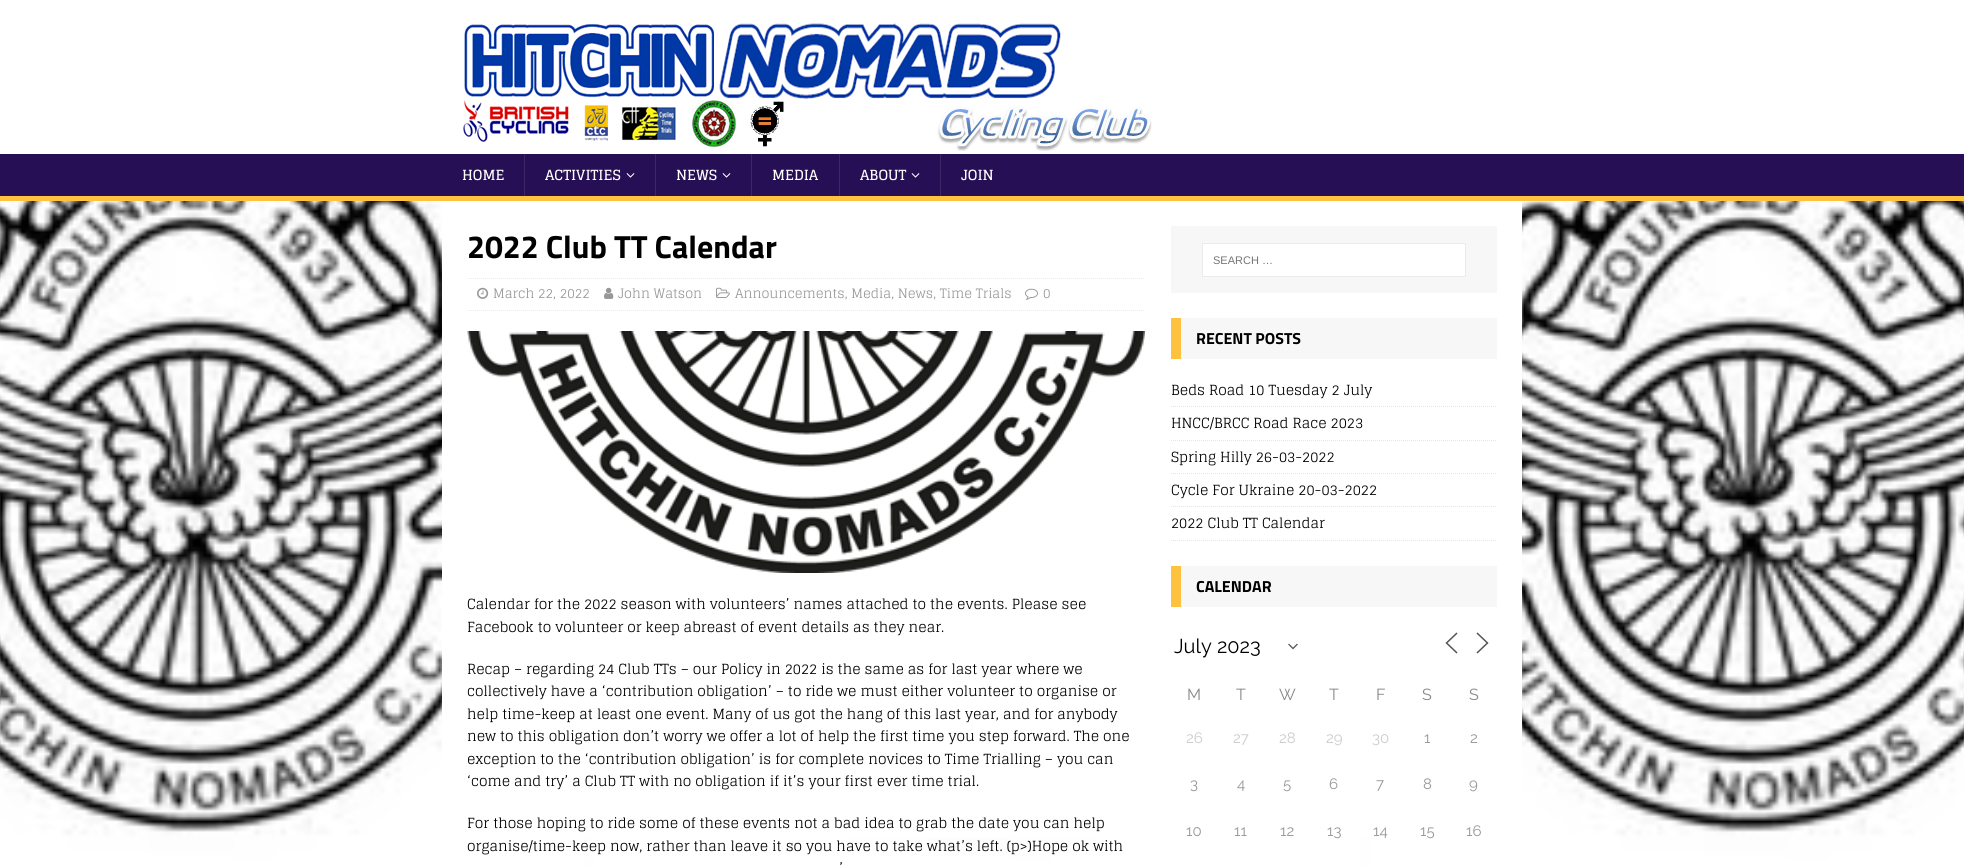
import math
import cairo

surface = cairo.ImageSurface(cairo.FORMAT_RGB24, 1964, 866)
c = cairo.Context(surface)
options = cairo.FontOptions()
options.set_hint_metrics(cairo.HINT_METRICS_OFF)
options.set_hint_style(cairo.HINT_STYLE_NONE)
c.set_font_options(options)
c.set_miter_limit(4)
def C(code):
 c.set_source_rgb(*(v / 255 for v in bytes.fromhex(code[-6:])))
def F(family, size, italic, bold):
 c.select_font_face(family, cairo.FONT_SLANT_ITALIC if italic else cairo.FONT_SLANT_NORMAL, cairo.FONT_WEIGHT_BOLD if bold else cairo.FONT_WEIGHT_NORMAL)
 c.set_font_size(size)
def T(x, y, s):
 c.move_to(x, y)
 c.show_text(s)
def R(x, y, w, h):
 c.rectangle(x, y, w, h)
 c.fill()
def I(path, x, y, w, h):
 c.save()
 c.set_source_surface(cairo.ImageSurface.create_from_png(path), x, y)
 c.rectangle(x, y, w, h)
 c.fill()
 c.restore()
C('ffffff')
c.paint()
I('1.png',0,201,1964,665)
I('2.png',463,22,689,129)
C('260f54')
R(0,154,1964,42)
C('fec23e')
R(0,196,1964,5)
F('Glegoo',14,0,1)
C('ffffff')
T(462,180,'HOME')
C('3c2765')
R(524,154,1,42)
C('ffffff')
T(545,180,'ACTIVITIES')
I('3.png',626,173,9,5)
C('3c2765')
R(655,154,1,42)
C('ffffff')
T(676,180,'NEWS')
I('3.png',722,173,9,5)
C('3c2765')
R(751,154,1,42)
C('ffffff')
T(772,180,'MEDIA')
C('3c2765')
R(839,154,1,42)
C('ffffff')
T(860,180,'ABOUT')
I('3.png',911,173,9,5)
C('3c2765')
R(940,154,1,42)
C('ffffff')
T(961,180,'JOIN')
R(442,201,1080,636)
F('Titillium Web',32,0,1)
C('000000')
T(467,258,'2022 Club TT Calendar')
c.new_path()
c.move_to(467,278.5)
c.line_to(1145,278.5)
C('ebebeb')
c.set_line_width(1)
c.set_dash([1,1])
c.stroke()
c.new_path()
c.move_to(467,310.5)
c.line_to(1145,310.5)
c.stroke()
I('4.png',477,287,12,12)
F('Glegoo',13,0,0)
C('979797')
T(493,298,'March 22, 2022')
I('5.png',604,287,10,12)
T(618,298,'John Watson')
I('6.png',716,287,14,11)
T(735,298,'Announcements, Media, News, Time Trials')
I('7.png',1025,288,13,12)
T(1043,298,'0')
I('8.png',467,331,678,242)
F('Glegoo',14,0,0)
C('000000')
T(467,609,'Calendar for the 2022 season with volunteers’ names attached to the events. Please see')
T(467,632,'Facebook to volunteer or keep abreast of event details as they near.')
T(467,674,'Recap – regarding 24 Club TTs – our Policy in 2022 is the same as for last year where we')
T(467,696,'collectively have a ‘contribution obligation’ – to ride we must either volunteer to organise or')
T(467,719,'help time-keep at least one event. Many of us got the hang of this last year, and for anybody')
T(467,741,'new to this obligation don’t worry we offer a lot of help the first time you step forward. The one')
T(467,764,'exception to the ‘contribution obligation’ is for complete novices to Time Trialling – you can')
T(467,786,'‘come and try’ a Club TT with no obligation if it’s your first ever time trial.')
T(467,828,'For those hoping to ride some of these events not a bad idea to grab the date you can help')
T(467,851,'organise/time-keep now, rather than leave it so you have to take what’s left. (p>)Hope ok with')
T(839,873,'’')
C('f7f7f7')
R(1171,226,326,67)
C('ffffff')
c.rectangle(1202.5,243.5,263,33)
c.fill_preserve()
C('ebebeb')
c.set_dash([])
c.stroke()
F('Liberation Sans',11,0,0)
C('757575')
T(1213,264,'SEARCH …')
C('f7f7f7')
R(1181,318,316,41)
C('fec23e')
R(1171,318,10,41)
F('Titillium Web',16,0,1)
C('000000')
T(1196,344,'RECENT POSTS')
c.new_path()
c.move_to(1171,406.5)
c.line_to(1497,406.5)
C('e5e5e5')
c.set_dash([1,1])
c.stroke()
F('Glegoo',14,0,0)
C('000000')
T(1171,395,'Beds Road 10 Tuesday 2 July')
c.new_path()
c.move_to(1171,440.5)
c.line_to(1497,440.5)
C('e5e5e5')
c.stroke()
C('000000')
T(1171,428,'HNCC/BRCC Road Race 2023')
c.new_path()
c.move_to(1171,473.5)
c.line_to(1497,473.5)
C('e5e5e5')
c.stroke()
C('000000')
T(1171,462,'Spring Hilly 26-03-2022')
c.new_path()
c.move_to(1171,506.5)
c.line_to(1497,506.5)
C('e5e5e5')
c.stroke()
C('000000')
T(1171,495,'Cycle For Ukraine 20-03-2022')
c.new_path()
c.move_to(1171,540.5)
c.line_to(1497,540.5)
C('e5e5e5')
c.stroke()
C('000000')
T(1171,528,'2022 Club TT Calendar')
C('f7f7f7')
R(1181,566,316,41)
C('fec23e')
R(1171,566,10,41)
F('Titillium Web',16,0,1)
C('000000')
T(1196,592,'CALENDAR')
c.new_path()
c.move_to(1289,644.5)
c.line_to(1293,648.5)
c.line_to(1297,644.5)
C('555555')
c.set_line_width(1.3)
c.set_line_cap(cairo.LINE_CAP_SQUARE)
c.set_dash([])
c.stroke()
F('Raleway',20,0,0)
C('000000')
T(1174,653,'July 2023')
c.new_path()
c.move_to(1456.5,652.5)
c.line_to(1446.5,643)
c.line_to(1456.5,633.5)
c.move_to(1477.5,652.5)
c.line_to(1487.5,643)
c.line_to(1477.5,633.5)
C('555555')
c.set_line_width(1.5)
c.stroke()
F('Raleway',16,0,0)
C('888888')
T(1187,700,'M')
T(1236,700,'T')
T(1279,700,'W')
T(1329,700,'T')
T(1376,700,'F')
T(1422,700,'S')
T(1469,700,'S')
F('Raleway',15,0,0)
C('cccccc')
T(1186,743,'26')
T(1233,743,'27')
T(1279,743,'28')
T(1326,743,'29')
T(1372,743,'30')
C('979797')
T(1424,743,'1')
T(1470,743,'2')
T(1190,789,'3')
T(1237,789,'4')
T(1283,789,'5')
T(1329,789,'6')
T(1376,789,'7')
T(1423,789,'8')
T(1469,789,'9')
T(1186,836,'10')
T(1234,836,'11')
T(1280,836,'12')
T(1327,836,'13')
T(1373,836,'14')
T(1420,836,'15')
T(1466,836,'16')
surface.write_to_png('o.png')
